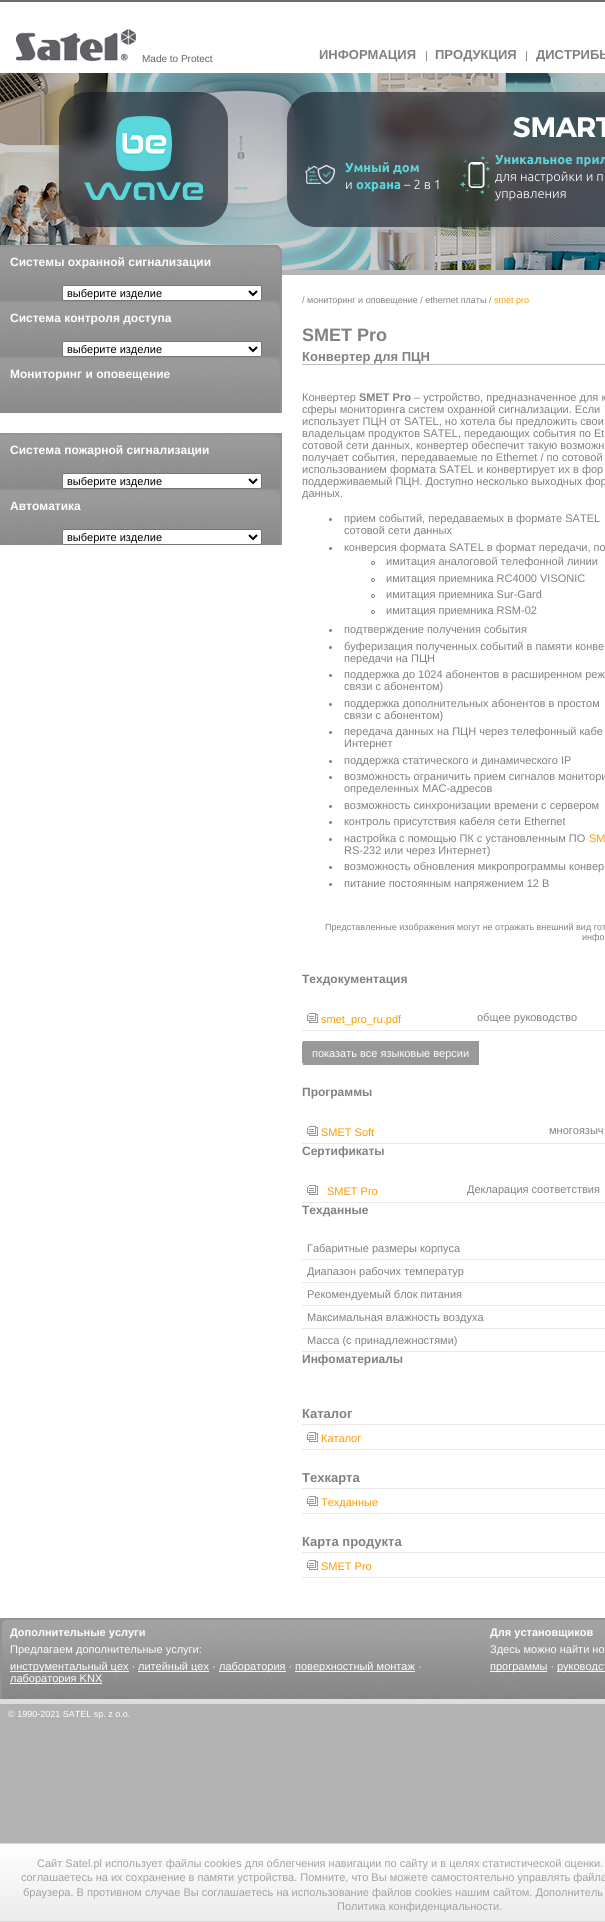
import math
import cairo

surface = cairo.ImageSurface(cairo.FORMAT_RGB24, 605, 1922)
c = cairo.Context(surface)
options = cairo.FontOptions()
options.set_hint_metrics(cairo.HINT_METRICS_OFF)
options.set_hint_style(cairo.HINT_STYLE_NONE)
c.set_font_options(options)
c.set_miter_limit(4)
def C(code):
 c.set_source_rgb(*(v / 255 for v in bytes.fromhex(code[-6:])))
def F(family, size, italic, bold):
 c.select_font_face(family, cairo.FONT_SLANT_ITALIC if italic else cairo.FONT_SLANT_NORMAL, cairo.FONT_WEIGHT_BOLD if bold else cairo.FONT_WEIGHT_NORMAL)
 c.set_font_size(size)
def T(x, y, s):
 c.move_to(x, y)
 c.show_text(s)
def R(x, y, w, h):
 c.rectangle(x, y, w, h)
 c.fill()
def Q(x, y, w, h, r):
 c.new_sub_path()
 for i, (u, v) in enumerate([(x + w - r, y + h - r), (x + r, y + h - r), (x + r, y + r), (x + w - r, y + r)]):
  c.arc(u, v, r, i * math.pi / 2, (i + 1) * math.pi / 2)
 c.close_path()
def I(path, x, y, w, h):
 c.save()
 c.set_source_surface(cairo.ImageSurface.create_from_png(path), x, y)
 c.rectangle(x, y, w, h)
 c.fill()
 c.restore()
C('b2b2b2')
c.paint()
I('1.png',0,0,605,2)
C('ffffff')
R(0,2,605,71)
I('2.png',16,29,120,32)
F('Liberation Sans',10,0,0)
C('626066')
T(142,62,'Made to Protect')
F('Liberation Sans',13,0,1)
C('818181')
T(319,59,'ИНФОРМАЦИЯ')
F('Liberation Sans',11,0,0)
T(425,59,'|')
F('Liberation Sans',13,0,1)
T(435,59,'ПРОДУКЦИЯ')
F('Liberation Sans',11,0,0)
T(525,59,'|')
F('Liberation Sans',13,0,1)
T(536,59,'ДИСТРИБЬ')
I('3.png',0,73,605,197)
I('4.png',305,165,30,19)
F('Ubuntu',13,0,1)
C('5ad7dc')
T(345,172,'Умный дом')
F('Ubuntu Light',13,0,0)
C('ffffff')
T(345,189,'и')
F('Ubuntu',13,0,1)
C('5ad7dc')
T(356,189,'охрана')
F('Ubuntu Light',13,0,0)
C('ffffff')
T(404,189,'– 2 в 1')
I('5.png',460,156,30,38)
F('Ubuntu',13,0,1)
C('5ad7dc')
T(495,164,'Уникальное прил')
F('Ubuntu Light',13,0,0)
C('ffffff')
T(495,181,'для настройки и п')
T(495,198,'управления')
C('b5b5b5')
R(282,270,323,5)
C('ffffff')
R(0,275,605,1343)
I('6.png',0,245,282,56)
F('Liberation Sans',12,0,1)
T(10,266,'Системы охранной сигнализации')
Q(62.5,285.5,199,15,1.5)
c.fill_preserve()
C('767676')
c.set_line_width(1)
c.stroke()
c.new_path()
c.move_to(249,291)
c.line_to(253,295)
c.line_to(257,291)
C('000000')
c.set_line_width(2)
c.stroke()
F('Liberation Sans',11,0,0)
T(67,297,'выберите изделие')
I('7.png',0,301,282,56)
F('Liberation Sans',12,0,1)
C('ffffff')
T(10,322,'Система контроля доступа')
Q(62.5,341.5,199,15,1.5)
c.fill_preserve()
C('767676')
c.set_line_width(1)
c.stroke()
c.new_path()
c.move_to(249,347)
c.line_to(253,351)
c.line_to(257,347)
C('000000')
c.set_line_width(2)
c.stroke()
F('Liberation Sans',11,0,0)
T(67,353,'выберите изделие')
I('7.png',0,357,282,56)
F('Liberation Sans',12,0,1)
C('ffffff')
T(10,378,'Мониторинг и оповещение')
I('7.png',0,433,282,56)
T(10,454,'Система пожарной сигнализации')
Q(62.5,473.5,199,15,1.5)
c.fill_preserve()
C('767676')
c.set_line_width(1)
c.stroke()
c.new_path()
c.move_to(249,479)
c.line_to(253,483)
c.line_to(257,479)
C('000000')
c.set_line_width(2)
c.stroke()
F('Liberation Sans',11,0,0)
T(67,485,'выберите изделие')
I('7.png',0,489,282,56)
F('Liberation Sans',12,0,1)
C('ffffff')
T(10,510,'Автоматика')
Q(62.5,529.5,199,15,1.5)
c.fill_preserve()
C('767676')
c.set_line_width(1)
c.stroke()
c.new_path()
c.move_to(249,535)
c.line_to(253,539)
c.line_to(257,535)
C('000000')
c.set_line_width(2)
c.stroke()
F('Liberation Sans',11,0,0)
T(67,541,'выберите изделие')
F('Liberation Sans',9,0,0)
C('818181')
T(302,303,'/ мониторинг и оповещение / ethernet платы /')
C('ff9900')
T(494,303,'smet pro')
F('Liberation Sans',18,0,1)
C('818181')
T(302,341,'SMET Pro')
C('bebebe')
R(302,364,303,1)
F('Liberation Sans',13,0,1)
C('818181')
T(302,361,'Конвертер для ПЦН')
F('Liberation Sans',11,0,0)
T(302,401,'Конвертер')
F('Liberation Sans',11,0,1)
T(359,401,'SMET Pro')
F('Liberation Sans',11,0,0)
T(414,401,'– устройство, предназначенное для к')
T(302,413,'сферы мониторинга систем охранной сигнализации. Если')
T(302,425,'использует ПЦН от SATEL, но хотела бы предложить свои')
T(302,437,'владельцам продуктов SATEL, передающих события по Et')
T(302,449,'сотовой сети данных, конвертер обеспечит такую возможн')
T(302,461,'получает события, передаваемые по Ethernet / по сотовой')
T(302,473,'использованием формата SATEL и конвертирует их в фор')
T(302,485,'поддерживаемый ПЦН. Доступно несколько выходных фор')
T(302,497,'данных.')
c.new_path()
c.arc(330.5,519.5,1.5,0,2 * math.pi)
c.fill()
T(344,522,'прием событий, передаваемых в формате SATEL')
T(344,534,'сотовой сети данных')
c.new_path()
c.arc(330.5,548.5,1.5,0,2 * math.pi)
c.fill()
T(344,551,'конверсия формата SATEL в формат передачи, по')
c.new_path()
c.arc(373,563,1.5,0,2 * math.pi)
c.set_line_width(1)
c.stroke()
T(386,565,'имитация аналоговой телефонной линии')
c.new_path()
c.arc(373,580,1.5,0,2 * math.pi)
c.stroke()
T(386,582,'имитация приемника RC4000 VISONIC')
c.new_path()
c.arc(373,596,1.5,0,2 * math.pi)
c.stroke()
T(386,598,'имитация приемника Sur-Gard')
c.new_path()
c.arc(373,612,1.5,0,2 * math.pi)
c.stroke()
T(386,614,'имитация приемника RSM-02')
c.new_path()
c.arc(330.5,630.5,1.5,0,2 * math.pi)
c.fill()
T(344,633,'подтверждение получения события')
c.new_path()
c.arc(330.5,647.5,1.5,0,2 * math.pi)
c.fill()
T(344,650,'буферизация полученных событий в памяти конве')
T(344,662,'передачи на ПЦН')
c.new_path()
c.arc(330.5,675.5,1.5,0,2 * math.pi)
c.fill()
T(344,678,'поддержка до 1024 абонентов в расширенном реж')
T(344,690,'связи с абонентом)')
c.new_path()
c.arc(330.5,704.5,1.5,0,2 * math.pi)
c.fill()
T(344,707,'поддержка дополнительных абонентов в простом')
T(344,719,'связи с абонентом)')
c.new_path()
c.arc(330.5,732.5,1.5,0,2 * math.pi)
c.fill()
T(344,735,'передача данных на ПЦН через телефонный кабе')
T(344,747,'Интернет')
c.new_path()
c.arc(330.5,761.5,1.5,0,2 * math.pi)
c.fill()
T(344,764,'поддержка статического и динамического IP')
c.new_path()
c.arc(330.5,777.5,1.5,0,2 * math.pi)
c.fill()
T(344,780,'возможность ограничить прием сигналов монитори')
T(344,792,'определенных MAC-адресов')
c.new_path()
c.arc(330.5,806.5,1.5,0,2 * math.pi)
c.fill()
T(344,809,'возможность синхронизации времени с сервером')
c.new_path()
c.arc(330.5,822.5,1.5,0,2 * math.pi)
c.fill()
T(344,825,'контроль присутствия кабеля сети Ethernet')
c.new_path()
c.arc(330.5,839.5,1.5,0,2 * math.pi)
c.fill()
T(344,842,'настройка с помощью ПК с установленным ПО')
C('ff9900')
T(589,842,'SM')
C('818181')
T(344,854,'RS-232 или через Интернет)')
c.new_path()
c.arc(330.5,867.5,1.5,0,2 * math.pi)
c.fill()
T(344,870,'возможность обновления микропрограммы конвер')
c.new_path()
c.arc(330.5,884.5,1.5,0,2 * math.pi)
c.fill()
T(344,887,'питание постоянным напряжением 12 В')
F('Liberation Sans',9,0,0)
T(325,930,'Представленные изображения могут не отражать внешний вид гот')
T(582,940,'инфо')
F('Liberation Sans',12,0,1)
T(302,983,'Техдокументация')
C('eaeaea')
R(302,1030,303,1)
I('8.png',307,1013,11,10)
F('Liberation Sans',11,0,0)
C('ff9900')
T(321,1023,'smet_pro_ru.pdf')
C('818181')
T(477,1021,'общее руководство')
C('999999')
R(303,1041,176,24)
I('9.png',302,1041,1,24)
C('ffffff')
T(312,1057,'показать все языковые версии')
F('Liberation Sans',12,0,1)
C('818181')
T(302,1096,'Программы')
C('eaeaea')
R(302,1143,303,1)
I('8.png',307,1126,11,10)
F('Liberation Sans',11,0,0)
C('ff9900')
T(321,1136,'SMET Soft')
C('818181')
T(549,1134,'многоязыч')
F('Liberation Sans',12,0,1)
T(302,1155,'Сертификаты')
C('eaeaea')
R(302,1202,303,1)
I('8.png',307,1185,11,10)
F('Liberation Sans',11,0,0)
C('ff9900')
T(327,1195,'SMET Pro')
C('818181')
T(467,1193,'Декларация соответствия')
F('Liberation Sans',12,0,1)
T(302,1214,'Техданные')
C('eaeaea')
R(302,1259,303,1)
F('Liberation Sans',11,0,0)
C('818181')
T(307,1252,'Габаритные размеры корпуса')
C('eaeaea')
R(302,1282,303,1)
C('818181')
T(307,1275,'Диапазон рабочих температур')
C('eaeaea')
R(302,1305,303,1)
C('818181')
T(307,1298,'Рекомендуемый блок питания')
C('eaeaea')
R(302,1328,303,1)
C('818181')
T(307,1321,'Максимальная влажность воздуха')
C('eaeaea')
R(302,1351,303,1)
C('818181')
T(307,1344,'Масса (с принадлежностями)')
F('Liberation Sans',12,0,1)
T(302,1363,'Инфоматериалы')
C('eaeaea')
R(302,1424,303,1)
F('Liberation Sans',13,0,1)
C('818181')
T(302,1418,'Каталог')
C('eaeaea')
R(302,1449,303,1)
I('8.png',307,1432,11,10)
F('Liberation Sans',11,0,0)
C('ff9900')
T(321,1442,'Каталог')
C('eaeaea')
R(302,1488,303,1)
F('Liberation Sans',13,0,1)
C('818181')
T(302,1482,'Техкарта')
C('eaeaea')
R(302,1513,303,1)
I('8.png',307,1496,11,10)
F('Liberation Sans',11,0,0)
C('ff9900')
T(321,1506,'Техданные')
C('eaeaea')
R(302,1552,303,1)
F('Liberation Sans',13,0,1)
C('818181')
T(302,1546,'Карта продукта')
C('eaeaea')
R(302,1577,303,1)
I('8.png',307,1560,11,10)
F('Liberation Sans',11,0,0)
C('ff9900')
T(321,1570,'SMET Pro')
I('10.png',0,1618,605,86)
F('Liberation Sans',11,0,1)
C('ffffff')
T(10,1636,'Дополнительные услуги')
F('Liberation Sans',11,0,0)
T(10,1653,'Предлагаем дополнительные услуги:')
R(10,1671,119,1)
T(10,1670,'инструментальный цех ·')
R(138,1671,71,1)
T(138,1670,'литейный цех ·')
R(219,1671,67,1)
T(219,1670,'лаборатория ·')
R(295,1671,120,1)
T(295,1670,'поверхностный монтаж ·')
R(10,1683,92,1)
T(10,1682,'лаборатория KNX')
F('Liberation Sans',11,0,1)
T(490,1636,'Для установщиков')
F('Liberation Sans',11,0,0)
T(490,1653,'Здесь можно найти но')
R(490,1671,57,1)
T(490,1670,'программы ·')
R(557,1671,48,1)
T(557,1670,'руководст')
F('Liberation Sans',9,0,0)
T(8,1717,'© 1990-2021 SATEL sp. z o.o.')
gradient = cairo.LinearGradient(303,1844,303,1921)
gradient.add_color_stop_rgba(0,1,1,1,1)
gradient.add_color_stop_rgba(1,0.922,0.922,0.922,1)
c.set_source(gradient)
R(0,1844,605,77)
C('d7d7d7')
R(0,1843,605,1)
R(0,1921,605,1)
F('Liberation Sans',11,0,0)
C('a2a2a2')
T(37,1867,'Сайт Satel.pl использует файлы cookies для облегчения навигации по сайту и в целях статистической оценки.')
T(21,1881,'соглашаетесь на их сохранение в памяти устройства. Помните, что Вы можете самостоятельно управлять файла')
T(23,1896,'браузера. В противном случае Вы соглашаетесь на использование файлов cookies нашим сайтом. Дополнитель')
T(337,1910,'Политика конфиденциальности.')
surface.write_to_png('o.png')
